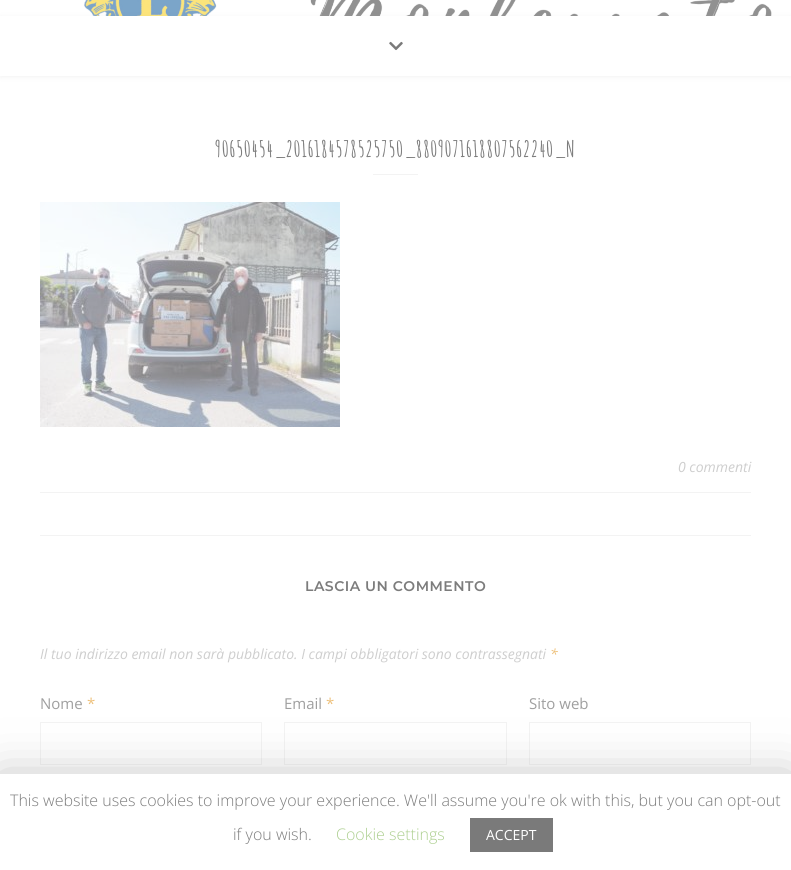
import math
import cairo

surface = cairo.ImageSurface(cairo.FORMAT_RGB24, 791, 870)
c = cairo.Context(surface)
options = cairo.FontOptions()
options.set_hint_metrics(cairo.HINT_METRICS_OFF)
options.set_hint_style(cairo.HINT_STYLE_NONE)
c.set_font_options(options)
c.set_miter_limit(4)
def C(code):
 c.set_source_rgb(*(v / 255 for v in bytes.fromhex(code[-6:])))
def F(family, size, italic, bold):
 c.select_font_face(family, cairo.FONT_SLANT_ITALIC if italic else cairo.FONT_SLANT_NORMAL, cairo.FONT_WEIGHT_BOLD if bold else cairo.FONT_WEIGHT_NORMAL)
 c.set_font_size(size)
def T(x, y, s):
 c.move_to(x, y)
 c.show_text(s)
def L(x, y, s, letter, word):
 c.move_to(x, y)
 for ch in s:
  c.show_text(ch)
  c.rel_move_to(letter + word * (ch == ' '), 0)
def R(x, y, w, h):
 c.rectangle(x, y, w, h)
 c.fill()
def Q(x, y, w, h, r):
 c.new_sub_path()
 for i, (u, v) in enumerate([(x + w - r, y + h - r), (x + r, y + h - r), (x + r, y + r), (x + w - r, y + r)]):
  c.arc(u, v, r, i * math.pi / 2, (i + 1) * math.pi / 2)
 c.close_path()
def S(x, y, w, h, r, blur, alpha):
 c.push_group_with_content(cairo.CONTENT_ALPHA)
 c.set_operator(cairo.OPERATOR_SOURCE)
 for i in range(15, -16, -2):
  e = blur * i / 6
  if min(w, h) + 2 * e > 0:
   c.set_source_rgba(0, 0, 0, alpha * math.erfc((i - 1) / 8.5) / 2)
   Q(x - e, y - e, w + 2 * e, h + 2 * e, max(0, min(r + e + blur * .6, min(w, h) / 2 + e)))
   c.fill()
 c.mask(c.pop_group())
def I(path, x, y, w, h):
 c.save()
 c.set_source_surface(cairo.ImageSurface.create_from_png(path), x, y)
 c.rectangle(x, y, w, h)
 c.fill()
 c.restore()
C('ffffff')
c.paint()
I('1.png',0,0,791,16)
C('7a7a7a')
S(0,17,791,60,0,2.5,.1)
C('ffffff')
R(0,16,791,60)
I('2.png',389,41,14,10)
F('Amatic SC',22,0,1)
C('7c7c7c')
L(215,157,'90650454_2016184578525750_8809071618807562240_N',.5,0)
C('f3f3f3')
R(373,174,45,1)
I('3.png',40,202,300,225)
R(40,492,711,1)
F('Open Sans',14,1,0)
C('cecece')
T(678,472,'0 commenti')
C('f3f3f3')
R(40,535,711,1)
F('Montserrat SemiBold',14,0,0)
C('7c7c7c')
L(305,591,'LASCIA UN COMMENTO',.5,0)
F('Open Sans',14,1,0)
C('cecece')
T(40,659,'Il tuo indirizzo email non sarà pubblicato. I campi obbligatori sono contrassegnati')
C('edc07a')
T(550,659,'*')
F('Open Sans',15,0,0)
C('9f9f9f')
T(40,709,'Nome')
C('edc07a')
T(87,709,'*')
c.rectangle(40.5,722.5,221,42)
C('f3f3f3')
c.set_line_width(1)
c.stroke()
C('9f9f9f')
T(284,709,'Email')
C('edc07a')
T(326,709,'*')
c.rectangle(284.5,722.5,222,42)
C('f3f3f3')
c.stroke()
C('9f9f9f')
T(529,709,'Sito web')
c.rectangle(529.5,722.5,221,42)
C('f3f3f3')
c.stroke()
C('7a7a7a')
S(0,779,791,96,0,25,.5)
C('ffffff')
R(0,774,791,96)
F('Open Sans Light',16,0,0)
C('7c7c7c')
T(10,806,'This website uses cookies to improve your experience. We\'ll assume you\'re ok with this, but you can opt-out')
T(233,840,'if you wish.')
C('adcf90')
T(336,840,'Cookie settings')
C('7a7a7a')
R(470,818,83,34)
F('Open Sans',14,0,0)
C('ffffff')
T(486,840,'ACCEPT')
surface.write_to_png('o.png')
